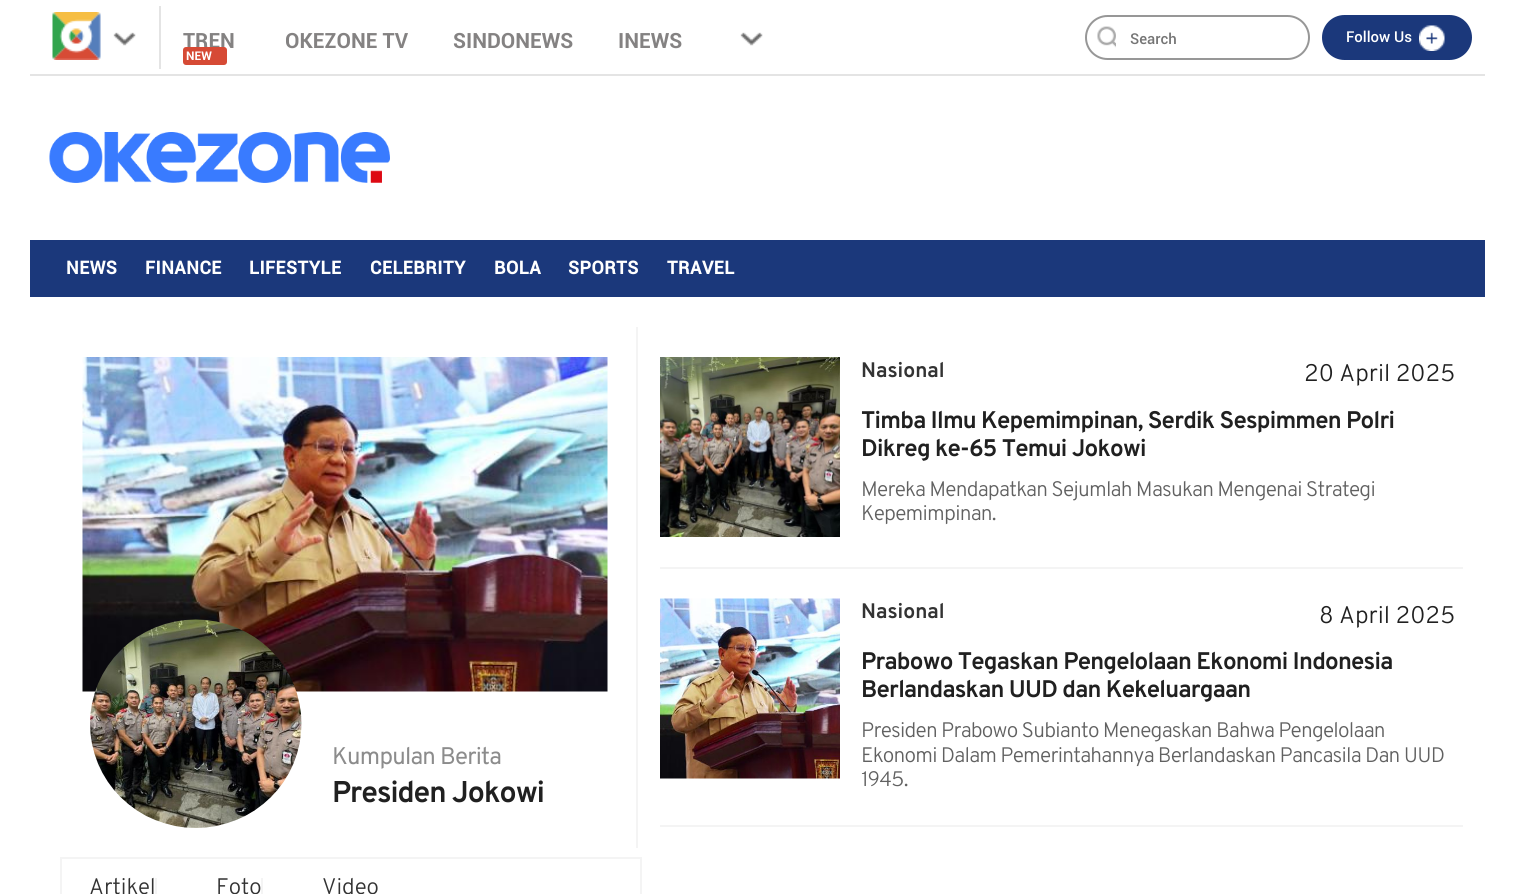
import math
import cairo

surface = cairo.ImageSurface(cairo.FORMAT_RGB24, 1514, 894)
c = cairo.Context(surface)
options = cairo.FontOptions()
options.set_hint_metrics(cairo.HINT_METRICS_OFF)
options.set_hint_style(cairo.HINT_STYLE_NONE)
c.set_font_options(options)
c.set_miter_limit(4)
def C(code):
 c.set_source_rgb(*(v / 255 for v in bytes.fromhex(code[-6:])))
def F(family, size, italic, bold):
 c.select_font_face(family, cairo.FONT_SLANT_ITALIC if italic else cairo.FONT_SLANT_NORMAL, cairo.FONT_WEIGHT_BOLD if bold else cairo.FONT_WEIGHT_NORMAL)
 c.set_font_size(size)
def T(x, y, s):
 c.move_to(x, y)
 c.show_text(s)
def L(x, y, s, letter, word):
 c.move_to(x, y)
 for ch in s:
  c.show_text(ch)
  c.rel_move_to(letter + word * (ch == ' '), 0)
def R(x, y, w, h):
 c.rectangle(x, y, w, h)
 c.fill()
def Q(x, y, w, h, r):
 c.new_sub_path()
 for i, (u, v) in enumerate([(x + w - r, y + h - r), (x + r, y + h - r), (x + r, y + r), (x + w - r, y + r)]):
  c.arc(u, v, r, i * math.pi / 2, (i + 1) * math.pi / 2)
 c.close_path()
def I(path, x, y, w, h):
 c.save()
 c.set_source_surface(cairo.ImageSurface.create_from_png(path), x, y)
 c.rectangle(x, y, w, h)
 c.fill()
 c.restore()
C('ffffff')
c.paint()
C('e4e4e4')
R(30,74,1455,2)
I('1.png',52,12,49,48)
I('2.png',113,32,23,14)
R(159,6,2,63)
F('Roboto',21,0,1)
C('848282')
T(183,48,'TREN')
C('d64a35')
Q(183,47,44,18,3)
c.fill()
F('Roboto',12,0,1)
C('ffffff')
T(186,60,'NEW')
F('Roboto',21,0,1)
C('848282')
T(285,48,'OKEZONE TV')
T(453,48,'SINDONEWS')
T(618,48,'INEWS')
I('3.png',740,32,23,14)
Q(1086,16,223,43,21.5)
C('979797')
c.stroke()
I('4.png',1097,26,19,22)
F('Roboto Medium',15,0,0)
C('757575')
T(1130,44,'Search')
C('1b387b')
Q(1322,15,150,45,22.5)
c.fill()
C('ffffff')
T(1346,42,'Follow Us')
I('5.png',1419,25,26,26)
I('6.png',49,132,341,51)
C('1b387b')
R(30,240,1455,57)
F('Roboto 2',18,0,1)
C('ffffff')
L(66,274,'NEWS',.5,0)
L(145,274,'FINANCE',.5,0)
L(249,274,'LIFESTYLE',.5,0)
L(370,274,'CELEBRITY',.5,0)
L(494,274,'BOLA',.5,0)
L(568,274,'SPORTS',.5,0)
L(667,274,'TRAVEL',.5,0)
C('f4f4f4')
R(636,327,2,521)
I('7.png',660,357,180,180)
F('Overpass',21,0,1)
C('333333')
T(861,377,'Nasional')
F('Overpass Light',24,0,0)
C('202020')
T(1304,381,'20 April 2025')
F('Overpass',24,0,1)
L(861,428,'Timba Ilmu Kepemimpinan, Serdik Sespimmen Polri',-.75,0)
L(861,456,'Dikreg ke-65 Temui Jokowi',-.75,0)
F('Overpass Light',21,0,0)
C('616161')
L(861,496,'Mereka Mendapatkan Sejumlah Masukan Mengenai Strategi',-.75,0)
L(861,520,'Kepemimpinan.',-.75,0)
C('f4f4f4')
R(660,567,803,2)
I('8.png',660,598,180,181)
F('Overpass',21,0,1)
C('333333')
T(861,618,'Nasional')
F('Overpass Light',24,0,0)
C('202020')
T(1319,623,'8 April 2025')
F('Overpass',24,0,1)
L(861,669,'Prabowo Tegaskan Pengelolaan Ekonomi Indonesia',-.75,0)
L(861,697,'Berlandaskan UUD dan Kekeluargaan',-.75,0)
F('Overpass Light',21,0,0)
C('616161')
L(861,737,'Presiden Prabowo Subianto Menegaskan Bahwa Pengelolaan',-.75,0)
L(861,762,'Ekonomi Dalam Pemerintahannya Berlandaskan Pancasila Dan UUD',-.75,0)
L(861,786,'1945.',-.75,0)
C('f4f4f4')
R(660,825,803,2)
I('9.png',82,357,526,335)
I('10.png',90,619,212,209)
F('Overpass',24,0,0)
C('8c8c8c')
L(332,764,'Kumpulan Berita',-.75,0)
F('Overpass',30,0,1)
C('202020')
L(332,802,'Presiden Jokowi',-1,0)
c.rectangle(61,858,580,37)
C('f4f4f4')
c.stroke()
F('Overpass Light',22.5,0,0)
C('333333')
T(89,894,'Artikel')
C('f4f4f4')
R(155,878,2,16)
C('333333')
T(216,894,'Foto')
C('f4f4f4')
R(261,878,2,16)
C('333333')
T(322,894,'Video')
surface.write_to_png('o.png')
